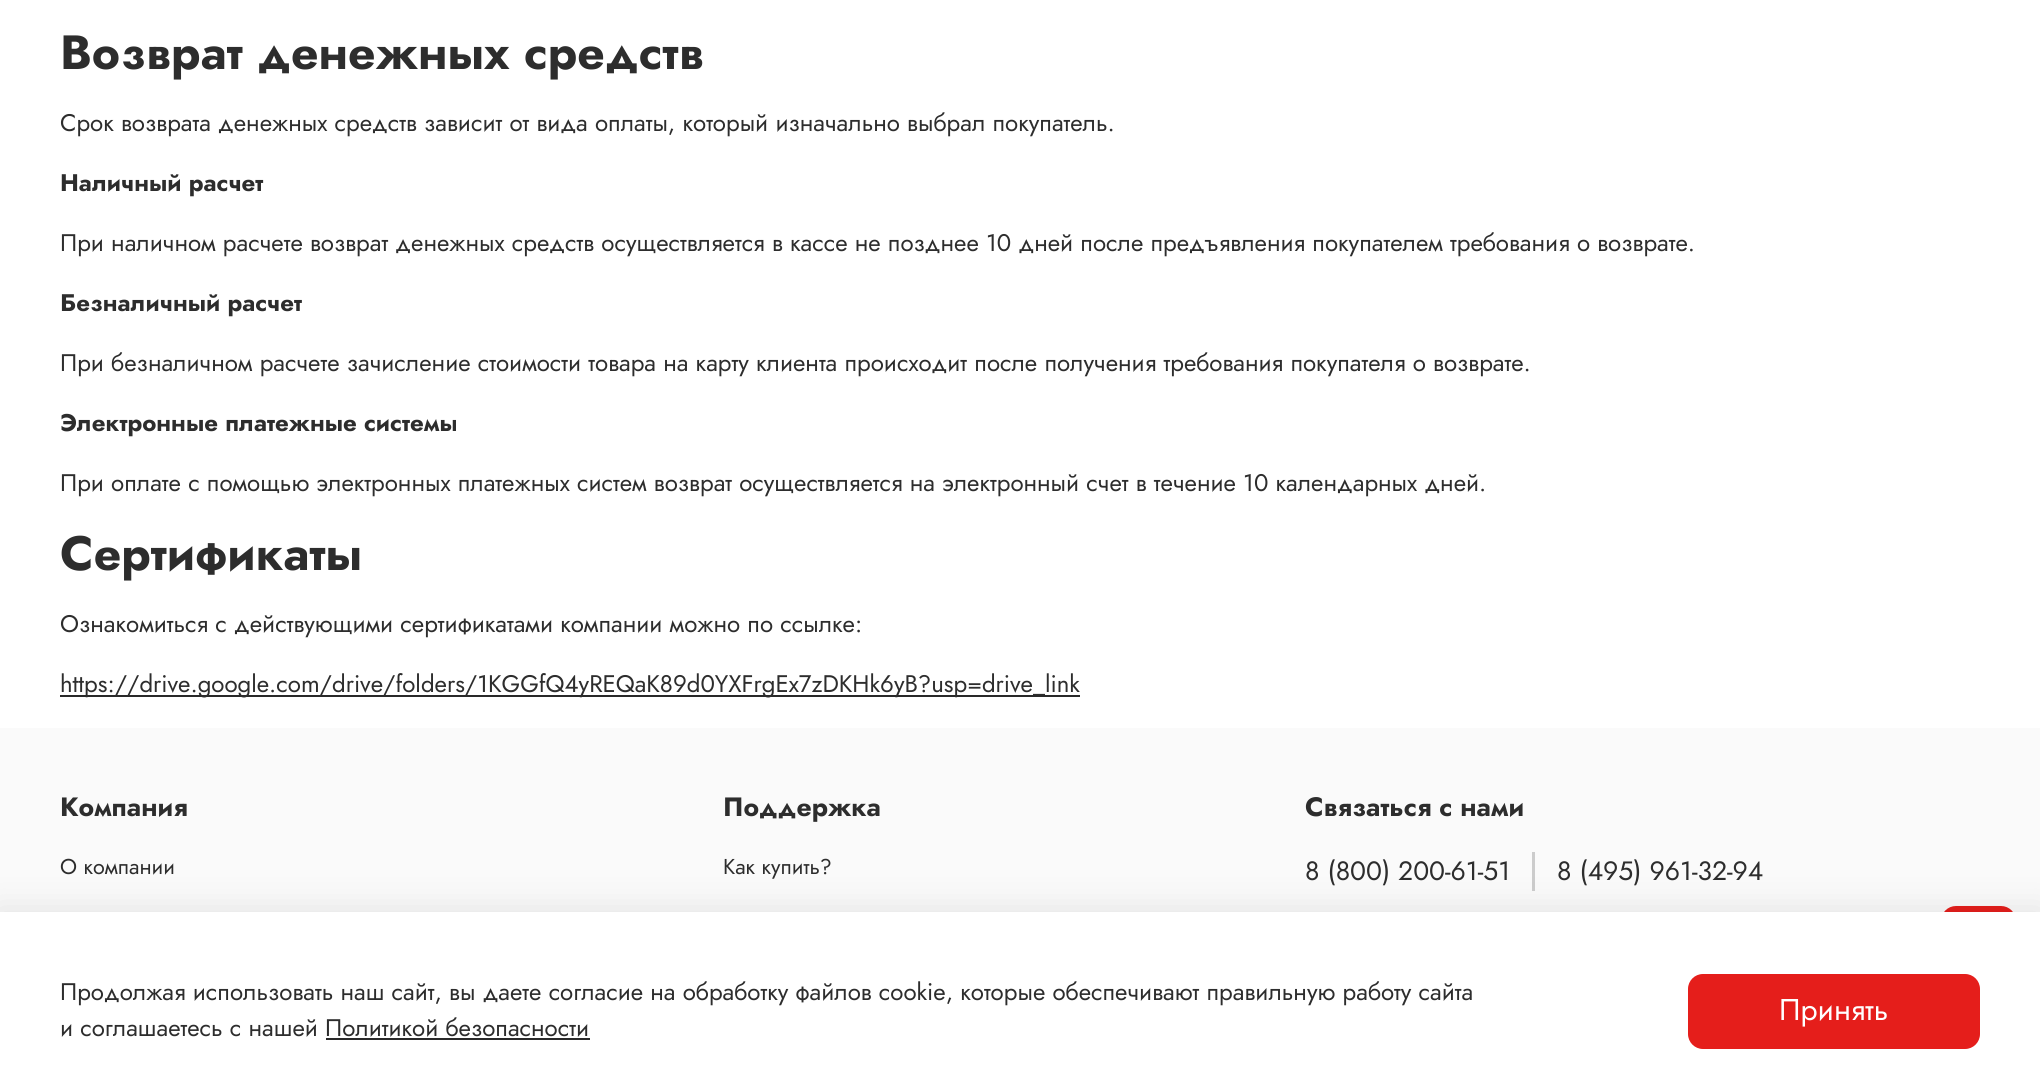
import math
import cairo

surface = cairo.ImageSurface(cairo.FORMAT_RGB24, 2040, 1089)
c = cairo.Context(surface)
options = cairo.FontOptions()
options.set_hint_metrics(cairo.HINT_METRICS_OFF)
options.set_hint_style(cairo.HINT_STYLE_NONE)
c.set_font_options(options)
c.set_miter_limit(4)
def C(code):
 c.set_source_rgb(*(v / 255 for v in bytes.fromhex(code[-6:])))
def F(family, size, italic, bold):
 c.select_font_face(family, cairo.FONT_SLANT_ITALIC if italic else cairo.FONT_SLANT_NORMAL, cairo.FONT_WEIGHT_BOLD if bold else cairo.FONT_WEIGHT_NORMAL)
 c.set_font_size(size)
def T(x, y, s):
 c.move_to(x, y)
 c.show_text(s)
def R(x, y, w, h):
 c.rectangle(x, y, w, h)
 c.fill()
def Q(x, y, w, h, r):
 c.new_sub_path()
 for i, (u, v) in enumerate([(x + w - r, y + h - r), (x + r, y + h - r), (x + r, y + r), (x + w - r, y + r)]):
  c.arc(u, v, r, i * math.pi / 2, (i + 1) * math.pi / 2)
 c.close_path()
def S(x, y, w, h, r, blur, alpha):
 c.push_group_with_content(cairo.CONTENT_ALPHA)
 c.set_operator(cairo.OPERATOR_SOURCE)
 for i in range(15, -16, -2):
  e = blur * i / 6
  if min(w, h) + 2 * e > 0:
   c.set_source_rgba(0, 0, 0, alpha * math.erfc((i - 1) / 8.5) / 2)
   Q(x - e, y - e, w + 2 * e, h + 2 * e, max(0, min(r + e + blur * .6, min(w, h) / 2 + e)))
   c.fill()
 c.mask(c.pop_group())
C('ffffff')
c.paint()
F('Jost',48,0,1)
C('2d2d2d')
T(60,69,'Возврат денежных средств')
F('Jost',24,0,0)
T(60,131,'Срок возврата денежных средств зависит от вида оплаты, который изначально выбрал покупатель.')
F('Jost',24,0,1)
T(60,191,'Наличный расчет')
F('Jost',24,0,0)
T(60,251,'При наличном расчете возврат денежных средств осуществляется в кассе не позднее 10 дней после предъявления покупателем требования о возврате.')
F('Jost',24,0,1)
T(60,311,'Безналичный расчет')
F('Jost',24,0,0)
T(60,371,'При безналичном расчете зачисление стоимости товара на карту клиента происходит после получения требования покупателя о возврате.')
F('Jost',24,0,1)
T(60,431,'Электронные платежные системы')
F('Jost',24,0,0)
T(60,491,'При оплате с помощью электронных платежных систем возврат осуществляется на электронный счет в течение 10 календарных дней.')
F('Jost',48,0,1)
T(60,570,'Сертификаты')
F('Jost',24,0,0)
T(60,632,'Ознакомиться с действующими сертификатами компании можно по ссылке:')
C('292929')
R(60,695,1020,2)
C('2d2d2d')
T(60,692,'https://drive.google.com/drive/folders/1KGGfQ4yREQaK89d0YXFrgEx7zDKHk6yB?usp=drive_link')
C('fafafa')
R(0,728,2040,184)
F('Jost',26.5,0,1)
C('2d2d2d')
T(60,816,'Компания')
F('Jost',21.5,0,0)
T(60,874,'О компании')
F('Jost',26.5,0,1)
T(723,816,'Поддержка')
F('Jost',21.5,0,0)
T(723,874,'Как купить?')
F('Jost',26.5,0,1)
T(1305,816,'Связаться с нами')
C('cccccc')
R(1532,852,3,39)
F('Jost',26.5,0,0)
C('2d2d2d')
T(1305,880,'8 (800) 200-61-51')
T(1557,880,'8 (495) 961-32-94')
C('e51e1b')
Q(1942,907,73,73,14)
c.fill_preserve()
c.stroke()
C('000000')
S(-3,908,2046,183,0,17,.09)
C('ffffff')
R(0,912,2040,177)
F('Jost',24,0,0)
C('2d2d2d')
T(60,1000,'Продолжая использовать наш сайт, вы даете согласие на обработку файлов cookie, которые обеспечивают правильную работу сайта')
T(60,1036,'и соглашаетесь с нашей')
T(325,1036,'Политикой безопасности')
C('292929')
R(326,1038,264,2)
C('e51e1b')
Q(1688,974,292,75,15)
c.fill()
F('Jost',30,0,0)
C('ffffff')
T(1779,1020,'Принять')
surface.write_to_png('o.png')
